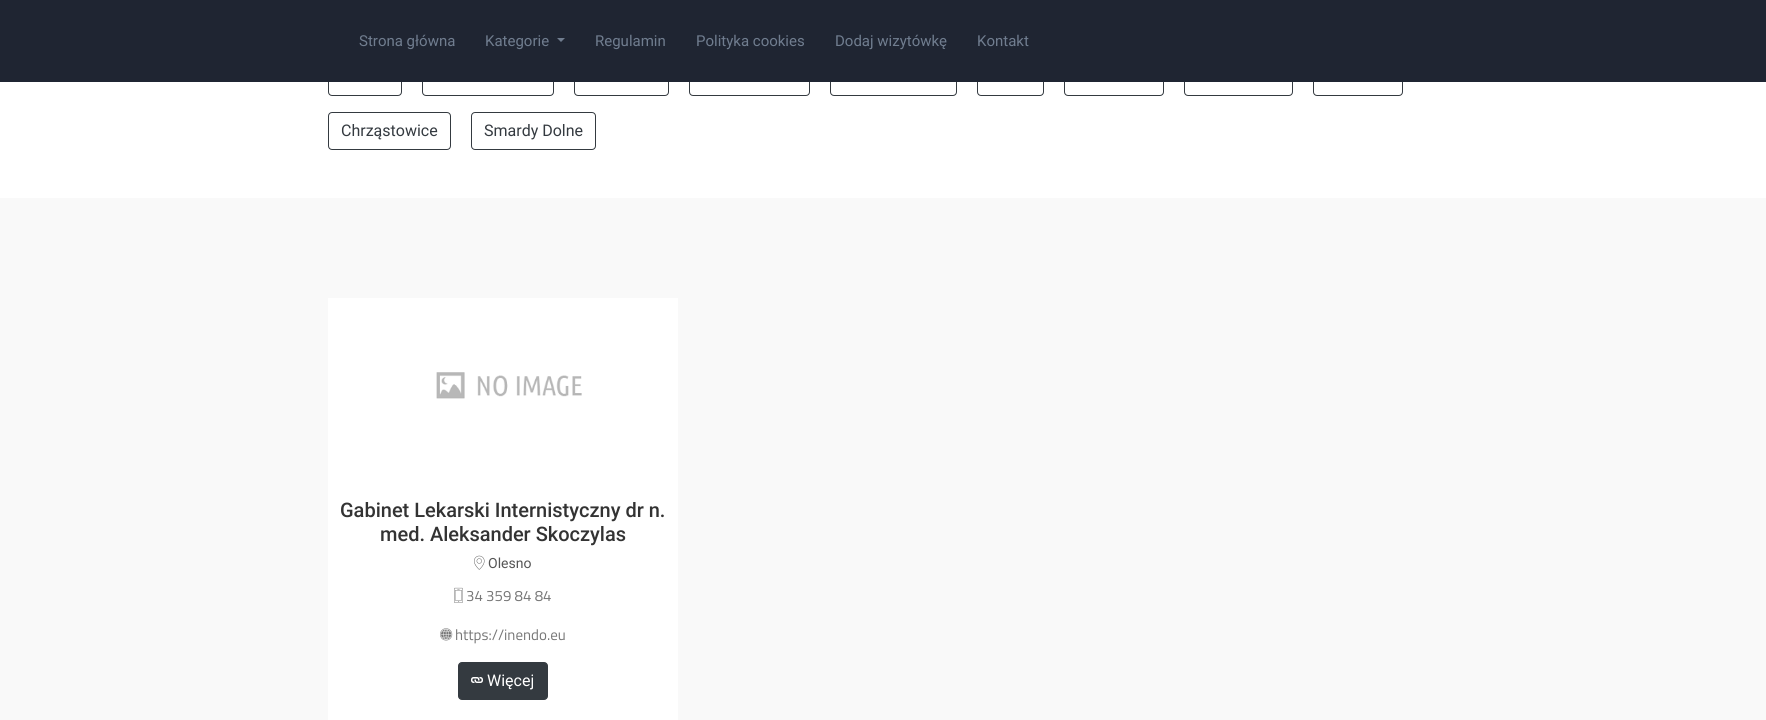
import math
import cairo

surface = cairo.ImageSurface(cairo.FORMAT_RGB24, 1766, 720)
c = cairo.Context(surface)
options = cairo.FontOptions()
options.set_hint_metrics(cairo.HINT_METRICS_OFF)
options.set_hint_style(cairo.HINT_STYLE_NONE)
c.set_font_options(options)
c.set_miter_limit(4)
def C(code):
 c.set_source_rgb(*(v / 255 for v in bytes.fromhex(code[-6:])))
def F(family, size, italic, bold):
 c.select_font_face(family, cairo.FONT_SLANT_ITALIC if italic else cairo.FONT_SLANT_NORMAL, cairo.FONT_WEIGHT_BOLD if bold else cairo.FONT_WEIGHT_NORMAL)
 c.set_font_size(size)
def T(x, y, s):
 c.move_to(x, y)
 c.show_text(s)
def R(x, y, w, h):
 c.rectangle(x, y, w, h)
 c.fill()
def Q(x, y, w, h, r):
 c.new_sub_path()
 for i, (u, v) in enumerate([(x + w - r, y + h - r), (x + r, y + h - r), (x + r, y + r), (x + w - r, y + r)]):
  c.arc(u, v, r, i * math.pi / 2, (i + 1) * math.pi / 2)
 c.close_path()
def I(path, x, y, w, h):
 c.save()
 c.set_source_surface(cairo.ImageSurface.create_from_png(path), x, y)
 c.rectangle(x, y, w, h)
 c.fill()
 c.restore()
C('ffffff')
c.paint()
Q(328.5,58.5,73,37,3.5)
C('343a40')
c.set_line_width(1)
c.stroke()
Q(422.5,58.5,131,37,3.5)
c.stroke()
Q(574.5,58.5,94,37,3.5)
c.stroke()
Q(689.5,58.5,120,37,3.5)
c.stroke()
Q(830.5,58.5,126,37,3.5)
c.stroke()
Q(977.5,58.5,66,37,3.5)
c.stroke()
Q(1064.5,58.5,99,37,3.5)
c.stroke()
Q(1184.5,58.5,108,37,3.5)
c.stroke()
Q(1313.5,58.5,89,37,3.5)
c.stroke()
C('1f2532')
R(0,0,1766,82)
F('Roboto',15,0,0)
C('707d8f')
T(359,46,'Strona główna')
T(485,46,'Kategorie')
c.new_path()
c.move_to(557,38)
c.line_to(565,38)
c.line_to(561,42)
c.close_path()
c.fill()
T(595,46,'Regulamin')
T(696,46,'Polityka cookies')
T(835,46,'Dodaj wizytówkę')
T(977,46,'Kontakt')
Q(328.5,112.5,122,37,3.5)
C('343a40')
c.stroke()
F('Roboto',16,0,0)
T(341,136,'Chrząstowice')
Q(471.5,112.5,124,37,3.5)
c.stroke()
T(484,136,'Smardy Dolne')
C('f9f9f9')
R(0,198,1766,522)
C('ffffff')
R(328,298,350,422)
I('1.png',436,372,146,27)
F('Roboto Medium',20,0,0)
C('333333')
T(340,517,'Gabinet Lekarski Internistyczny dr n.')
T(380,541,'med. Aleksander Skoczylas')
I('2.png',474,555,11,15)
F('Roboto',14,0,0)
C('555555')
T(488,568,'Olesno')
I('3.png',454,587,9,16)
F('Titillium Web',15,0,0)
C('777777')
T(466,601,'34 359 84 84')
I('4.png',440,628,13,13)
T(455,640,'https://inendo.eu')
C('343a40')
Q(458.5,662.5,89,37,3.5)
c.fill_preserve()
c.stroke()
I('5.png',471,677,12,6)
F('Roboto',16,0,0)
C('ffffff')
T(487,686,'Więcej')
surface.write_to_png('o.png')
